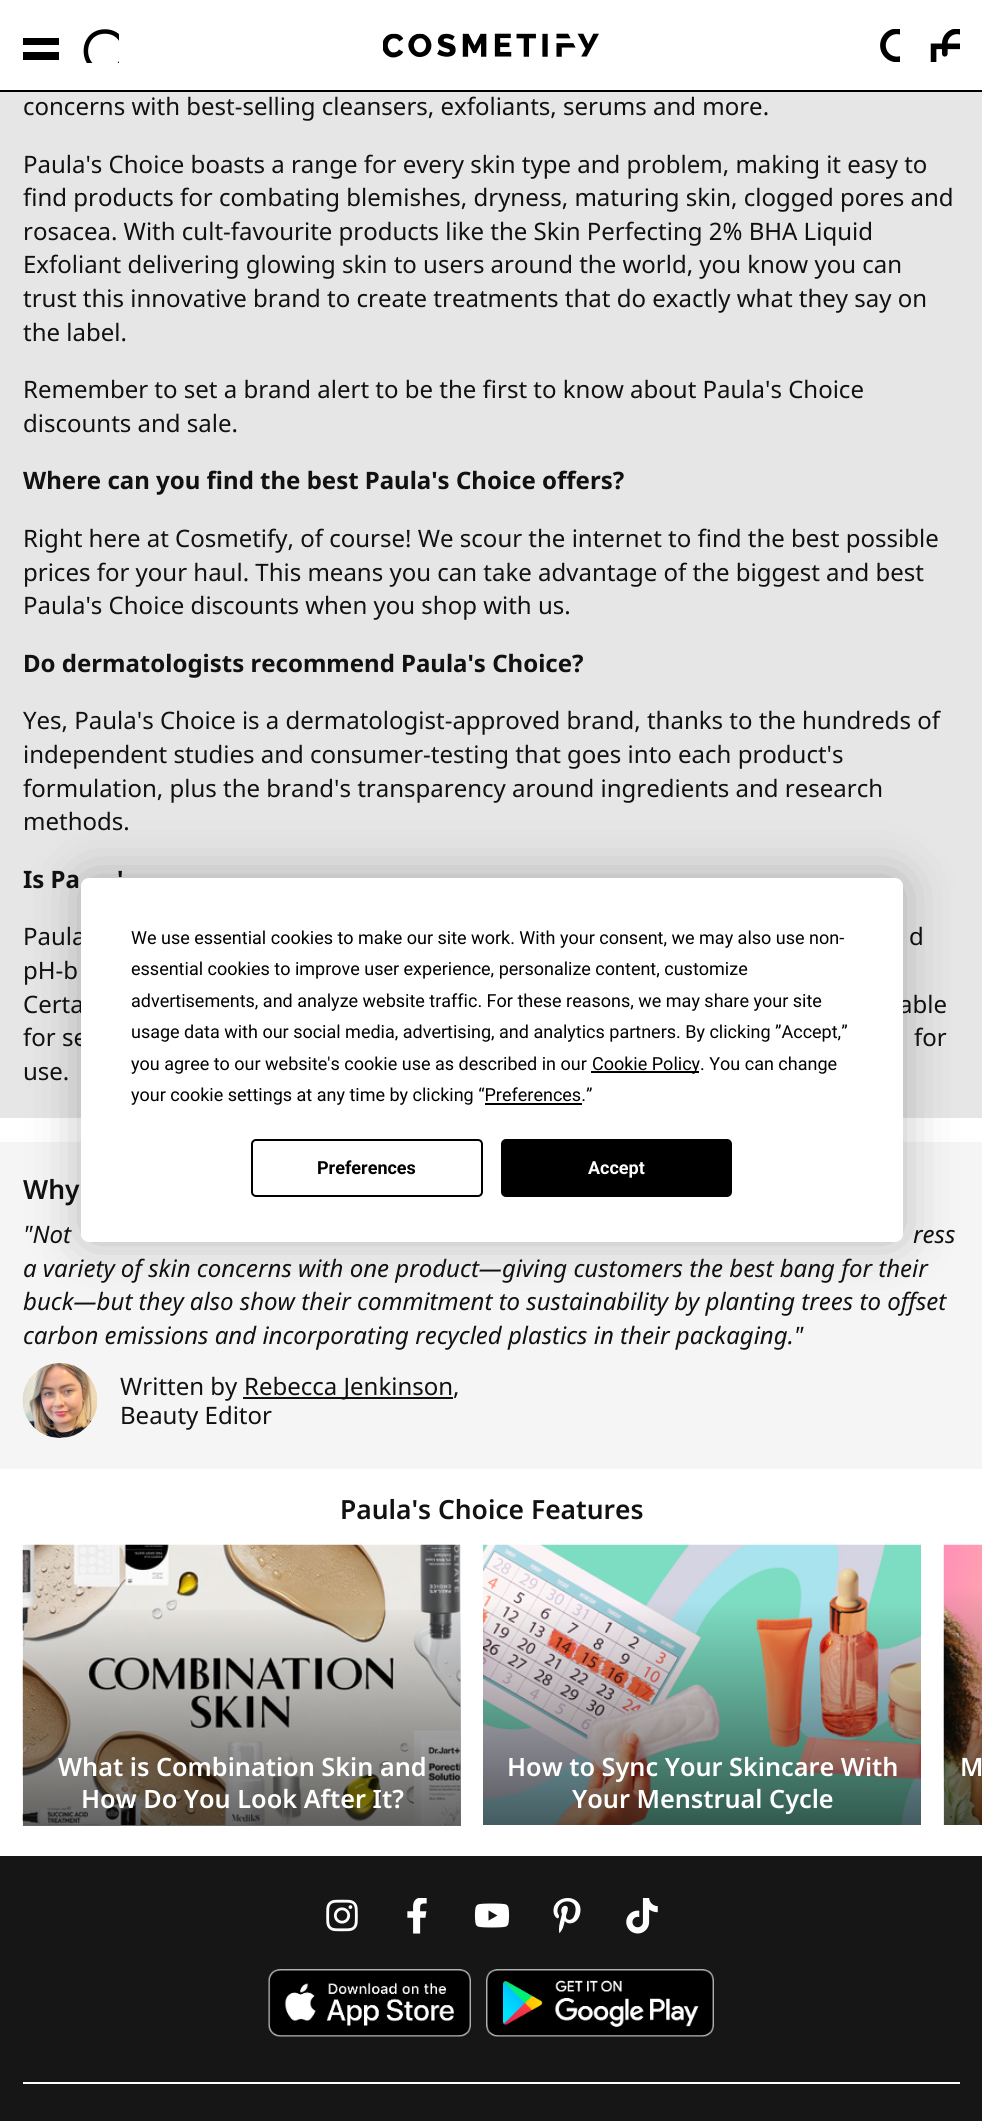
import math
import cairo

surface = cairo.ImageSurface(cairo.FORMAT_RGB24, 982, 2121)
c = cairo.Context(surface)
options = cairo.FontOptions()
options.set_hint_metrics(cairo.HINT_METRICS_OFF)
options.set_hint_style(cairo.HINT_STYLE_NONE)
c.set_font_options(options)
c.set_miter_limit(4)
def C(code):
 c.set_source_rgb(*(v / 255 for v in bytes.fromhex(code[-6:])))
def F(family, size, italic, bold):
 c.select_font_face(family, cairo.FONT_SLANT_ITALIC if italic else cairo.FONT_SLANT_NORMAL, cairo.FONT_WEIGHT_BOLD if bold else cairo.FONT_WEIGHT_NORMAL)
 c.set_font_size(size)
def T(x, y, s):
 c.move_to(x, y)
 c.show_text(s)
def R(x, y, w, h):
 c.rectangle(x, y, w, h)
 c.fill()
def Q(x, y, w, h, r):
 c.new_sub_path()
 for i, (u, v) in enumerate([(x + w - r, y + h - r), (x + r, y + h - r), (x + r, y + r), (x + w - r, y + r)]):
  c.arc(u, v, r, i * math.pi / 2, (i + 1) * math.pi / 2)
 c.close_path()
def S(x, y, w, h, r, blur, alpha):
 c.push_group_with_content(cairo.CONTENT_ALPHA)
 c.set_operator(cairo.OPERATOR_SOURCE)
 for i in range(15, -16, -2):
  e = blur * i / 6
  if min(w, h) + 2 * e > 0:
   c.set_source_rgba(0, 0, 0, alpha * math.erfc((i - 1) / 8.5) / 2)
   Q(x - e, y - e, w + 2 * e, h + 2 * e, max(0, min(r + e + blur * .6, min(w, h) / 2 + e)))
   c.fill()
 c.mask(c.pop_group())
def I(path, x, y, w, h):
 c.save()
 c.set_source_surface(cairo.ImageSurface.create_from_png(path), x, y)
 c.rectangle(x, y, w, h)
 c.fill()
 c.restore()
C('ffffff')
c.paint()
C('000000')
R(0,90,982,2)
c.save()
c.rectangle(23,27,36,36)
c.clip()
c.new_path()
c.move_to(22,38)
c.line_to(82,38)
c.line_to(78,45)
c.line_to(23,45)
c.line_to(23,38)
c.close_path()
c.move_to(22,52)
c.line_to(74,52)
c.line_to(70,60)
c.line_to(22,60)
c.close_path()
c.move_to(22,68)
c.line_to(65,68)
c.line_to(61,75)
c.line_to(23,75)
c.line_to(23,68)
c.close_path()
c.fill()
c.restore()
c.save()
c.rectangle(83,27,36,36)
c.clip()
c.new_path()
c.move_to(105,70.5)
c.curve_to(79.5,70.5,79.5,31.5,105,31.5)
c.curve_to(130.5,31.5,130.5,70.5,105,70.5)
c.close_path()
c.move_to(120.5,64)
c.line_to(137,80.5)
c.line_to(136,81.5)
c.line_to(119.5,65)
c.close_path()
c.set_line_width(4.5)
c.stroke()
c.restore()
I('1.png',383,33,216,25)
I('2.png',880,29,20,33)
I('3.png',930,29,30,33)
C('e6e6e6')
R(0,92,982,1026)
F('Noto Sans',24,0,0)
C('111111')
T(23,115,'concerns with best-selling cleansers, exfoliants, serums and more.')
T(23,173,'Paula\'s Choice boasts a range for every skin type and problem, making it easy to')
T(23,206,'find products for combating blemishes, dryness, maturing skin, clogged pores and')
T(23,240,'rosacea. With cult-favourite products like the Skin Perfecting 2% BHA Liquid')
T(23,273,'Exfoliant delivering glowing skin to users around the world, you know you can')
T(23,307,'trust this innovative brand to create treatments that do exactly what they say on')
T(23,341,'the label.')
T(23,398,'Remember to set a brand alert to be the first to know about Paula\'s Choice')
T(23,432,'discounts and sale.')
F('Noto Sans',24,0,1)
T(23,489,'Where can you find the best Paula\'s Choice offers?')
F('Noto Sans',24,0,0)
T(23,547,'Right here at Cosmetify, of course! We scour the internet to find the best possible')
T(23,581,'prices for your haul. This means you can take advantage of the biggest and best')
T(23,614,'Paula\'s Choice discounts when you shop with us.')
F('Noto Sans',24,0,1)
T(23,672,'Do dermatologists recommend Paula\'s Choice?')
F('Noto Sans',24,0,0)
T(23,729,'Yes, Paula\'s Choice is a dermatologist-approved brand, thanks to the hundreds of')
T(23,763,'independent studies and consumer-testing that goes into each product\'s')
T(23,797,'formulation, plus the brand\'s transparency around ingredients and research')
T(23,830,'methods.')
F('Noto Sans',24,0,1)
T(23,888,'Is Pa')
T(117,888,'\'')
F('Noto Sans',24,0,0)
T(23,945,'Paula')
T(909,945,'d')
T(23,979,'pH-b')
T(23,1013,'Certa')
T(899,1013,'able')
T(23,1046,'for se')
T(914,1046,'for')
T(23,1080,'use.')
C('f5f5f5')
R(0,1142,982,327)
F('Noto Sans SemiBold',26.4,0,0)
C('111111')
T(23,1199,'Why')
F('Noto Sans',24,1,0)
T(23,1243,'"Not')
T(913,1243,'ress')
T(23,1277,'a variety of skin concerns with one product—giving customers the best bang for their')
T(23,1310,'buck—but they also show their commitment to sustainability by planting trees to offset')
T(23,1344,'carbon emissions and incorporating recycled plastics in their packaging."')
I('4.png',22,1363,76,75)
F('Noto Sans',24,0,0)
T(120,1395,'Written by')
R(243,1397,210,2)
T(244,1395,'Rebecca Jenkinson,')
T(120,1424,'Beauty Editor')
F('Noto Sans SemiBold',26.4,0,0)
T(340,1519,'Paula\'s Choice Features')
I('5.png',22,1544,439,281)
gradient = cairo.LinearGradient(241,1377,242,1827)
gradient.add_color_stop_rgba(.5,0,0,0,0)
gradient.add_color_stop_rgba(1,0,0,0,.6)
c.set_source(gradient)
R(23,1610,438,216)
F('Noto Sans SemiBold',25.25,0,0)
C('ffffff')
T(58,1776,'What is Combination Skin and')
T(81,1808,'How Do You Look After It?')
I('6.png',483,1544,438,281)
T(507,1776,'How to Sync Your Skincare With')
T(572,1808,'Your Menstrual Cycle')
I('7.png',943,1544,39,281)
T(960,1776,'M')
C('000000')
S(81,878,822,364,8,26,.25)
C('ffffff')
Q(81,878,822,364,8)
c.fill()
F('Roboto',18,0,0)
C('000000')
T(131,944,'We use essential cookies to make our site work. With your consent, we may also use non-')
T(131,975,'essential cookies to improve user experience, personalize content, customize')
T(131,1007,'advertisements, and analyze website traffic. For these reasons, we may share your site')
T(131,1038,'usage data with our social media, advertising, and analytics partners. By clicking ”Accept,”')
T(131,1070,'you agree to our website\'s cookie use as described in our')
R(591,1071,108,2)
T(592,1070,'Cookie Policy. You can change')
T(131,1101,'your cookie settings at any time by clicking “Preferences.”')
R(485,1103,97,2)
Q(252,1140,230,56,4)
c.stroke()
F('Roboto',18,0,1)
T(317,1174,'Preferences')
Q(502,1140,229,56,4)
c.fill_preserve()
c.stroke()
C('ffffff')
T(588,1174,'Accept')
C('161616')
R(0,1856,982,265)
I('8.png',326,1899,32,33)
I('9.png',407,1898,20,36)
I('10.png',474,1903,36,25)
I('11.png',553,1898,28,35)
I('12.png',626,1898,32,36)
I('13.png',268,1969,203,68)
I('14.png',486,1969,228,68)
C('ffffff')
R(23,2082,937,2)
surface.write_to_png('o.png')
